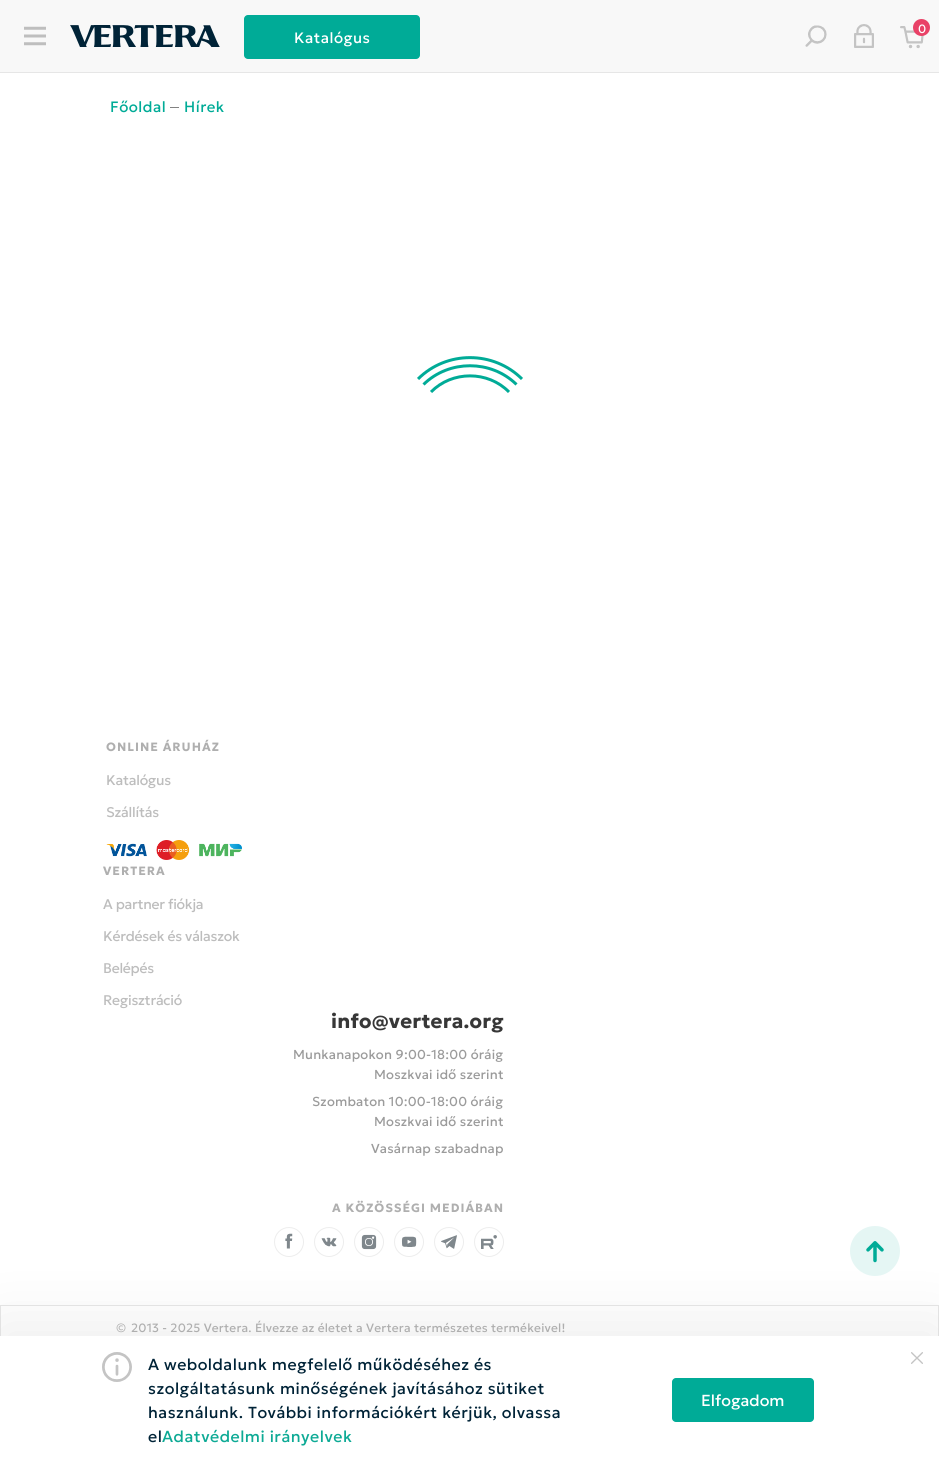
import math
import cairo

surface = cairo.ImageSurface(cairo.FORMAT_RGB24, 939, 1464)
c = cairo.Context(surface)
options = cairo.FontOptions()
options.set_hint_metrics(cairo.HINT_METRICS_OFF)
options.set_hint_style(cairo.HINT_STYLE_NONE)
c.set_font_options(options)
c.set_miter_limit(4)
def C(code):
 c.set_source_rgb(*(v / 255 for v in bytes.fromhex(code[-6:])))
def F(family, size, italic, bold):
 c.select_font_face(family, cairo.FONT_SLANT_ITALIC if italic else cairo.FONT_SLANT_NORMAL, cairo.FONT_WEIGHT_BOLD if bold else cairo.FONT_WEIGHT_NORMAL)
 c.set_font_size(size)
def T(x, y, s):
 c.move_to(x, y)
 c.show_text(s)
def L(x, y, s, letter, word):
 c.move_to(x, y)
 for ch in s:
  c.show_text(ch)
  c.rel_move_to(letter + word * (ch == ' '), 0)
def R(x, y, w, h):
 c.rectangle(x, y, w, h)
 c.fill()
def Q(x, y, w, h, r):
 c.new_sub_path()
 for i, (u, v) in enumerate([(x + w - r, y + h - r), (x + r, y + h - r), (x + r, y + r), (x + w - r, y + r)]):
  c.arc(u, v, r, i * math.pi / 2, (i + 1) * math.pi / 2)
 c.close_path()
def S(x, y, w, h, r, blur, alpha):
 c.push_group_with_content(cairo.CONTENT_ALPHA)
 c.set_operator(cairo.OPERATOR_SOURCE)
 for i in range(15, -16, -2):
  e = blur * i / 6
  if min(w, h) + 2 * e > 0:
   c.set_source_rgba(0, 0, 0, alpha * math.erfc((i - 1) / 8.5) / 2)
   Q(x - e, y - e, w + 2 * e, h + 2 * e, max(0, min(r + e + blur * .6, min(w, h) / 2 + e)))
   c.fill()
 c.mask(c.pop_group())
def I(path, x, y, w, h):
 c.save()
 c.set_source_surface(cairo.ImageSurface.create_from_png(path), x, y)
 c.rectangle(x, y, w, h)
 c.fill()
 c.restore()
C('ffffff')
c.paint()
C('e6e6e6')
R(0,72,939,1)
C('f8f8f8')
R(0,0,939,72)
I('1.png',24,26,22,20)
I('2.png',70,25,150,22)
C('00ab97')
Q(244,15,176,44,4)
c.fill()
F('Geologica',15,0,0)
C('ffffff')
L(294,43,'Katalógus',.5,0)
I('3.png',805,25,22,22)
I('4.png',854,24,20,24)
I('5.png',900,26,24,23)
C('e94267')
c.arc(921.5,27.5,8.5,0,2 * math.pi)
c.fill()
F('Geologica',12,0,0)
C('ffffff')
L(918,33,'0',.5,0)
F('Geologica',15,0,0)
C('00ab97')
L(110,112,'Főoldal',.5,0)
C('828282')
R(170,107,9,1)
C('00ab97')
L(184,112,'Hírek',.5,0)
c.new_path()
c.move_to(418,379)
c.curve_to(446.5,350.5,493.5,350.5,522,379)
c.set_line_width(3)
c.stroke()
c.new_path()
c.move_to(423.5,384.5)
c.curve_to(449,359.5,491,359.5,516.5,384.5)
c.stroke()
c.new_path()
c.move_to(431,392)
c.curve_to(452,370.5,488,370.5,509,392)
c.stroke()
F('Geologica',12,0,1)
C('afafaf')
L(106,751,'ONLINE ÁRUHÁZ',1,0)
F('Geologica',14,0,0)
C('bdbdbd')
L(106,785,'Katalógus',-.25,0)
L(106,817,'Szállítás',-.25,0)
I('6.png',106,840,136,20)
F('Geologica',12,0,1)
C('afafaf')
L(103,875,'VERTERA',1,0)
F('Geologica',14,0,0)
C('bdbdbd')
L(103,909,'A partner fiókja',-.25,0)
L(103,941,'Kérdések és válaszok',-.25,0)
L(103,973,'Belépés',-.25,0)
L(103,1005,'Regisztráció',-.25,0)
F('Geologica',20,0,1)
C('373737')
L(331,1028,'info@vertera.org',.2,0)
F('Geologica',13,0,0)
C('9b9b9b')
L(293,1059,'Munkanapokon 9:00-18:00 óráig',.2,0)
L(374,1079,'Moszkvai idő szerint',.2,0)
L(312,1106,'Szombaton 10:00-18:00 óráig',.2,0)
L(374,1126,'Moszkvai idő szerint',.2,0)
L(371,1153,'Vasárnap szabadnap',.2,0)
F('Geologica',12,0,1)
C('afafaf')
L(332,1212,'A KÖZÖSSÉGI MEDIÁBAN',1,0)
c.new_path()
c.arc(289,1242,14.5,0,2 * math.pi)
C('ededed')
c.set_line_width(1)
c.stroke()
I('7.png',285,1233,8,16)
c.arc(329,1242,14.5,0,2 * math.pi)
c.stroke()
I('8.png',321,1237,16,10)
c.arc(369,1242,14.5,0,2 * math.pi)
c.stroke()
I('9.png',361,1234,16,16)
c.arc(409,1242,14.5,0,2 * math.pi)
c.stroke()
I('10.png',401,1236,16,11)
c.arc(449,1242,14.5,0,2 * math.pi)
c.stroke()
I('11.png',441,1235,16,14)
c.arc(489,1242,14.5,0,2 * math.pi)
c.stroke()
I('12.png',481,1235,16,14)
c.rectangle(.5,1305.5,938,79)
C('e6e6e6')
c.stroke()
C('c2c2c2')
S(0,1326,939,128,0,30,.3)
C('e5f6f4')
c.arc(875,1251,25,0,2 * math.pi)
c.fill()
I('13.png',866,1241,18,22)
F('Geologica',12,0,0)
C('afafaf')
L(116,1332,'©',.2,0)
L(131,1332,'2013 - 2025 Vertera. Élvezze az életet a Vertera természetes termékeivel!',.2,0)
C('ffffff')
R(0,1336,939,128)
I('14.png',102,1352,30,30)
F('Geologica',16,0,0)
C('002337')
L(148,1370,'A weboldalunk megfelelő működéséhez és',.5,0)
L(148,1394,'szolgáltatásunk minőségének javításához sütiket',.5,0)
L(148,1418,'használunk. További információkért kérjük, olvassa',.5,0)
L(148,1442,'el',.5,0)
C('0daa95')
L(162,1442,'Adatvédelmi irányelvek',.5,0)
C('00ab97')
Q(672,1378,142,44,4)
c.fill()
C('ffffff')
T(701,1406,'Elfogadom')
I('15.png',911,1352,12,12)
surface.write_to_png('o.png')
